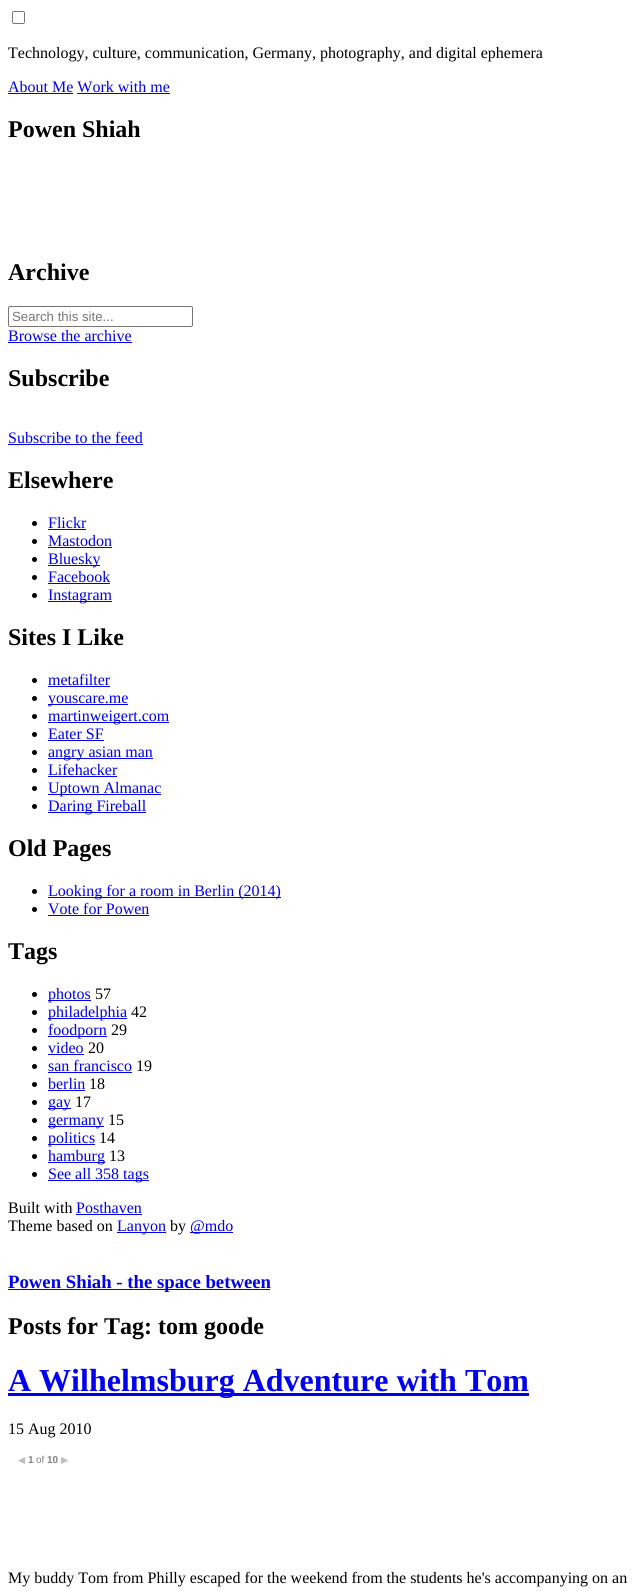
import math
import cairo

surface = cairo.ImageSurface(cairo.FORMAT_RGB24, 639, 1591)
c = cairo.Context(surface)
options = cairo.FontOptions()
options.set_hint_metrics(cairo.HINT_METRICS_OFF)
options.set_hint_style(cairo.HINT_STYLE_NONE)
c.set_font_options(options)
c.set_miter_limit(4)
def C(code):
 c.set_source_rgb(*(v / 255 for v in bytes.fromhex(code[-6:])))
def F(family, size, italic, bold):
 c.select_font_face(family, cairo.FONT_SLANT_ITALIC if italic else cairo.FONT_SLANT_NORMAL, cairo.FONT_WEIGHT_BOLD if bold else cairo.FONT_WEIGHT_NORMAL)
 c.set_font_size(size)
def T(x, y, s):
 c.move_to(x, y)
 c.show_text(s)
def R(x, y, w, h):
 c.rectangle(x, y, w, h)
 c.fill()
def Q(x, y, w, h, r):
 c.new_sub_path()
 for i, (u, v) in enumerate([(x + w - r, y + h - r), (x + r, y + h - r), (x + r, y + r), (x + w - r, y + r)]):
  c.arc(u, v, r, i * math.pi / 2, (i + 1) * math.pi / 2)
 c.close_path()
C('ffffff')
c.paint()
Q(12.5,11.5,12,12,1.5)
C('767676')
c.set_line_width(1)
c.stroke()
F('Liberation Serif',16,0,0)
C('000000')
T(8,58,'Technology, culture, communication, Germany, photography, and digital ephemera')
C('0000ee')
T(8,92,'About Me Work with me')
R(8,93,65,1)
R(77,93,93,1)
F('Liberation Serif',24,0,1)
C('000000')
T(8,137,'Powen Shiah')
T(8,280,'Archive')
Q(8.5,306.5,184,20,1.5)
C('767676')
c.stroke()
F('Liberation Sans',13.25,0,0)
C('757575')
T(12,321,'Search this site...')
F('Liberation Serif',16,0,0)
C('0000ee')
T(8,341,'Browse the archive')
R(8,342,124,1)
F('Liberation Serif',24,0,1)
C('000000')
T(8,386,'Subscribe')
F('Liberation Serif',16,0,0)
C('0000ee')
T(8,443,'Subscribe to the feed')
R(8,444,135,1)
F('Liberation Serif',24,0,1)
C('000000')
T(8,488,'Elsewhere')
c.new_path()
c.arc(34.5,523.5,2.5,0,2 * math.pi)
c.fill()
F('Liberation Serif',16,0,0)
C('0000ee')
T(48,528,'Flickr')
R(48,529,38,1)
C('000000')
c.new_path()
c.arc(34.5,541.5,2.5,0,2 * math.pi)
c.fill()
C('0000ee')
T(48,546,'Mastodon')
R(48,547,64,1)
C('000000')
c.new_path()
c.arc(34.5,559.5,2.5,0,2 * math.pi)
c.fill()
C('0000ee')
R(48,565,52,1)
T(48,564,'Bluesky')
C('000000')
c.new_path()
c.arc(34.5,577.5,2.5,0,2 * math.pi)
c.fill()
C('0000ee')
T(48,582,'Facebook')
R(48,583,62,1)
C('000000')
c.new_path()
c.arc(34.5,595.5,2.5,0,2 * math.pi)
c.fill()
C('0000ee')
R(48,601,64,1)
T(48,600,'Instagram')
F('Liberation Serif',24,0,1)
C('000000')
T(8,645,'Sites I Like')
c.new_path()
c.arc(34.5,680.5,2.5,0,2 * math.pi)
c.fill()
F('Liberation Serif',16,0,0)
C('0000ee')
T(48,685,'metafilter')
R(48,686,62,1)
C('000000')
c.new_path()
c.arc(34.5,698.5,2.5,0,2 * math.pi)
c.fill()
C('0000ee')
R(48,704,80,1)
T(48,703,'youscare.me')
C('000000')
c.new_path()
c.arc(34.5,716.5,2.5,0,2 * math.pi)
c.fill()
C('0000ee')
R(48,722,121,1)
T(48,721,'martinweigert.com')
C('000000')
c.new_path()
c.arc(34.5,734.5,2.5,0,2 * math.pi)
c.fill()
C('0000ee')
T(48,739,'Eater SF')
R(48,740,56,1)
C('000000')
c.new_path()
c.arc(34.5,752.5,2.5,0,2 * math.pi)
c.fill()
C('0000ee')
R(48,758,105,1)
T(48,757,'angry asian man')
C('000000')
c.new_path()
c.arc(34.5,770.5,2.5,0,2 * math.pi)
c.fill()
C('0000ee')
T(48,775,'Lifehacker')
R(48,776,69,1)
C('000000')
c.new_path()
c.arc(34.5,788.5,2.5,0,2 * math.pi)
c.fill()
C('0000ee')
R(48,794,113,1)
T(48,793,'Uptown Almanac')
C('000000')
c.new_path()
c.arc(34.5,806.5,2.5,0,2 * math.pi)
c.fill()
C('0000ee')
R(48,812,98,1)
T(48,811,'Daring Fireball')
F('Liberation Serif',24,0,1)
C('000000')
T(8,856,'Old Pages')
c.new_path()
c.arc(34.5,891.5,2.5,0,2 * math.pi)
c.fill()
C('0000ee')
R(48,897,233,1)
F('Liberation Serif',16,0,0)
T(48,896,'Looking for a room in Berlin (2014)')
C('000000')
c.new_path()
c.arc(34.5,909.5,2.5,0,2 * math.pi)
c.fill()
C('0000ee')
T(48,914,'Vote for Powen')
R(48,915,101,1)
F('Liberation Serif',24,0,1)
C('000000')
T(8,959,'Tags')
c.new_path()
c.arc(34.5,994.5,2.5,0,2 * math.pi)
c.fill()
C('0000ee')
R(48,1000,43,1)
F('Liberation Serif',16,0,0)
T(48,999,'photos')
C('000000')
T(95,999,'57')
c.new_path()
c.arc(34.5,1012.5,2.5,0,2 * math.pi)
c.fill()
C('0000ee')
R(48,1018,79,1)
T(48,1017,'philadelphia')
C('000000')
T(131,1017,'42')
c.new_path()
c.arc(34.5,1030.5,2.5,0,2 * math.pi)
c.fill()
C('0000ee')
R(48,1036,59,1)
T(48,1035,'foodporn')
C('000000')
T(111,1035,'29')
c.new_path()
c.arc(34.5,1048.5,2.5,0,2 * math.pi)
c.fill()
C('0000ee')
T(48,1053,'video')
R(48,1054,36,1)
C('000000')
T(88,1053,'20')
c.new_path()
c.arc(34.5,1066.5,2.5,0,2 * math.pi)
c.fill()
C('0000ee')
T(48,1071,'san francisco')
R(48,1072,84,1)
C('000000')
T(136,1071,'19')
c.new_path()
c.arc(34.5,1084.5,2.5,0,2 * math.pi)
c.fill()
C('0000ee')
T(48,1089,'berlin')
R(48,1090,37,1)
C('000000')
T(89,1089,'18')
c.new_path()
c.arc(34.5,1102.5,2.5,0,2 * math.pi)
c.fill()
C('0000ee')
R(48,1108,23,1)
T(48,1107,'gay')
C('000000')
T(75,1107,'17')
c.new_path()
c.arc(34.5,1120.5,2.5,0,2 * math.pi)
c.fill()
C('0000ee')
R(48,1126,56,1)
T(48,1125,'germany')
C('000000')
T(108,1125,'15')
c.new_path()
c.arc(34.5,1138.5,2.5,0,2 * math.pi)
c.fill()
C('0000ee')
R(48,1144,47,1)
T(48,1143,'politics')
C('000000')
T(99,1143,'14')
c.new_path()
c.arc(34.5,1156.5,2.5,0,2 * math.pi)
c.fill()
C('0000ee')
R(48,1162,57,1)
T(48,1161,'hamburg')
C('000000')
T(109,1161,'13')
c.new_path()
c.arc(34.5,1174.5,2.5,0,2 * math.pi)
c.fill()
C('0000ee')
R(48,1180,101,1)
T(48,1179,'See all 358 tags')
C('000000')
T(8,1213,'Built with')
C('0000ee')
T(76,1213,'Posthaven')
R(76,1214,66,1)
C('000000')
T(8,1231,'Theme based on')
C('0000ee')
R(117,1232,49,1)
T(117,1231,'Lanyon')
C('000000')
T(170,1231,'by')
C('0000ee')
R(190,1232,43,1)
T(190,1231,'@mdo')
R(8,1289,262,1)
F('Liberation Serif',18.75,0,1)
T(8,1288,'Powen Shiah - the space between')
F('Liberation Serif',24,0,1)
C('000000')
T(8,1334,'Posts for Tag: tom goode')
C('0000ee')
R(8,1393,521,3)
F('Liberation Serif',32,0,1)
T(8,1391,'A Wilhelmsburg Adventure with Tom')
F('Liberation Serif',16,0,0)
C('000000')
T(8,1434,'15 Aug 2010')
F('DejaVu Sans',9,0,1)
C('bfbfbf')
T(18,1463,'◀')
F('Liberation Sans',10,0,1)
C('808080')
T(28,1463,'1')
F('Liberation Sans',10,0,0)
T(36,1463,'of')
F('Liberation Sans',10,0,1)
T(47,1463,'10')
F('DejaVu Sans',9,0,1)
C('bfbfbf')
T(61,1463,'▶')
F('Liberation Serif',16,0,0)
C('000000')
T(8,1583,'My buddy Tom from Philly escaped for the weekend from the students he\'s accompanying on an')
surface.write_to_png('o.png')
